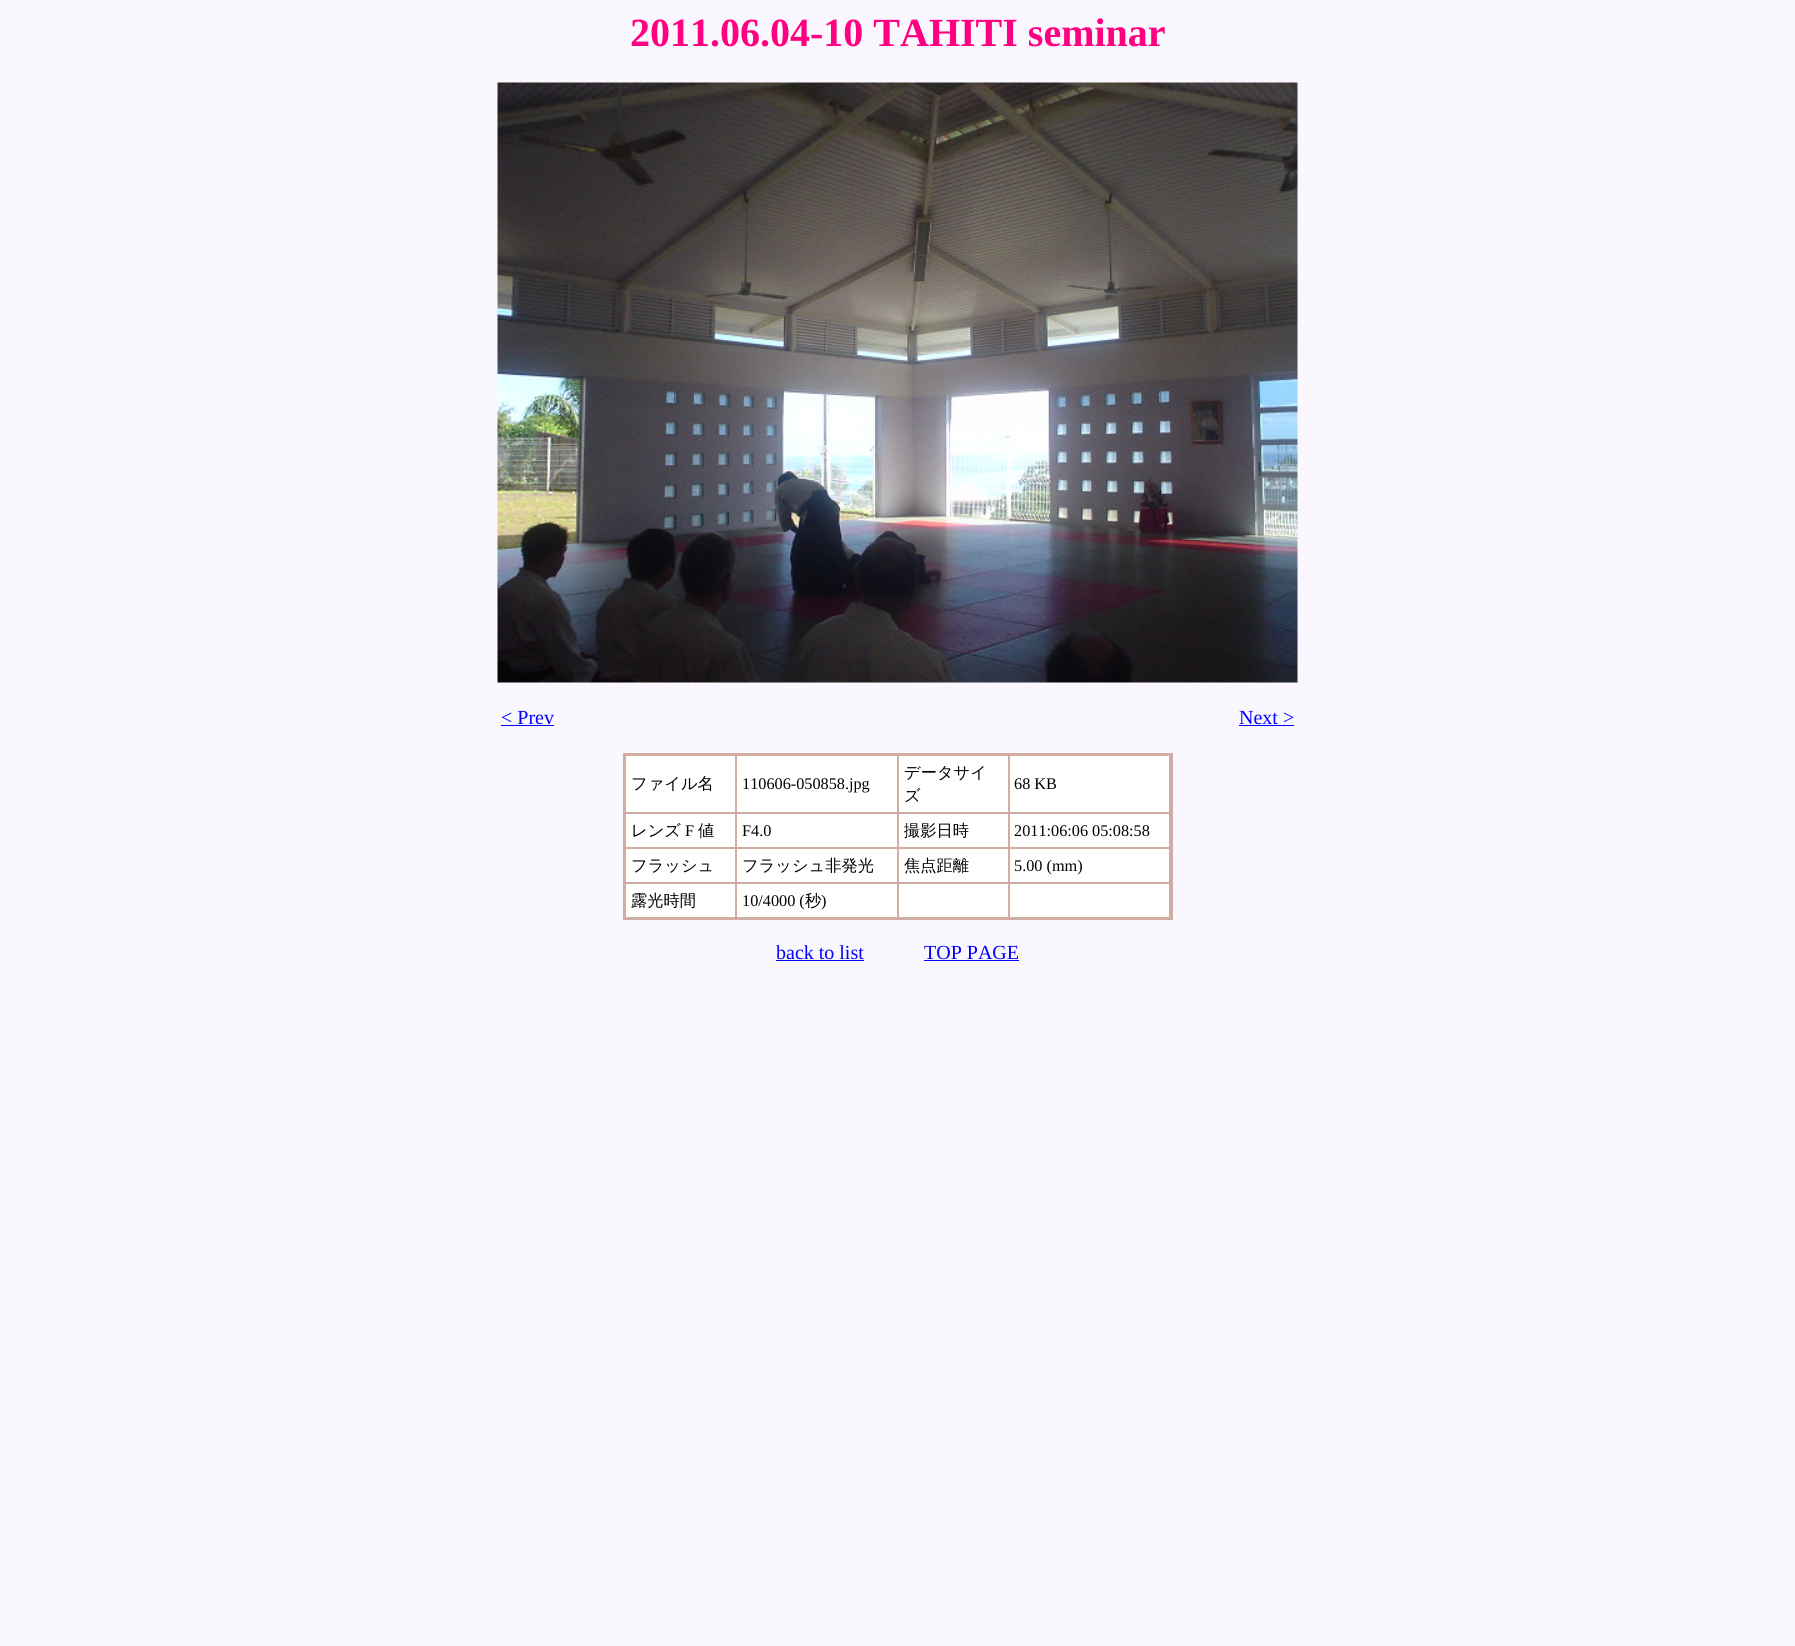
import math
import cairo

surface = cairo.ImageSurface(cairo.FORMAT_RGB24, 1795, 1646)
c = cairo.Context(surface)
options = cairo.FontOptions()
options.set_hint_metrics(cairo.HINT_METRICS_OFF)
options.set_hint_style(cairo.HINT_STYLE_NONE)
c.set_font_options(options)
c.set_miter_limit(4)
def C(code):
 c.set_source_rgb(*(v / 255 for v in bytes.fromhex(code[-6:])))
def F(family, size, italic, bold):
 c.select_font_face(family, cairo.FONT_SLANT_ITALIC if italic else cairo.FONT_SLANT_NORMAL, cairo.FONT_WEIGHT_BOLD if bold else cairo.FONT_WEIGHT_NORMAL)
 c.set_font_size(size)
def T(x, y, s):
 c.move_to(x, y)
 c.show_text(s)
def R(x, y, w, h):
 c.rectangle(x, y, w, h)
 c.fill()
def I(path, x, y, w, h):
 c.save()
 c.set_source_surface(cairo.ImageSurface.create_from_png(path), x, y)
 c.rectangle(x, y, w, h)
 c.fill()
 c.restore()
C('faf7ff')
c.paint()
F('Liberation Serif',40,0,1)
C('ff0080')
T(630,46,'2011.06.04-10 TAHITI seminar')
I('1.png',497,82,801,601)
F('Liberation Serif',20,0,0)
C('0000ff')
T(501,724,'< Prev')
R(501,725,53,1)
T(1239,724,'Next >')
R(1239,725,55,1)
C('ffffff')
R(626,756,543,161)
c.rectangle(624.5,754.5,547,164)
C('d1aca3')
c.set_line_width(3)
c.stroke()
c.rectangle(625.5,755.5,110,57)
c.set_line_width(1)
c.stroke()
F('WenQuanYi Zen Hei Medium',16.25,0,0)
C('000000')
T(631,789,'ファイル名')
c.rectangle(736.5,755.5,161,57)
C('d1aca3')
c.stroke()
F('Liberation Serif',16.25,0,0)
C('000000')
T(742,789,'110606-050858.jpg')
c.rectangle(898.5,755.5,110,57)
C('d1aca3')
c.stroke()
F('WenQuanYi Zen Hei Medium',16.25,0,0)
C('000000')
T(904,778,'データサイ')
T(904,801,'ズ')
c.rectangle(1009.5,755.5,160,57)
C('d1aca3')
c.stroke()
F('Liberation Serif',16.25,0,0)
C('000000')
T(1014,789,'68 KB')
c.rectangle(625.5,813.5,110,34)
C('d1aca3')
c.stroke()
F('WenQuanYi Zen Hei Medium',16.25,0,0)
C('000000')
T(631,836,'レンズ')
F('Liberation Serif',16.25,0,0)
T(685,836,'F')
F('WenQuanYi Zen Hei Medium',16.25,0,0)
T(698,836,'値')
c.rectangle(736.5,813.5,161,34)
C('d1aca3')
c.stroke()
F('Liberation Serif',16.25,0,0)
C('000000')
T(742,836,'F4.0')
c.rectangle(898.5,813.5,110,34)
C('d1aca3')
c.stroke()
F('WenQuanYi Zen Hei Medium',16.25,0,0)
C('000000')
T(904,836,'撮影日時')
c.rectangle(1009.5,813.5,160,34)
C('d1aca3')
c.stroke()
F('Liberation Serif',16.25,0,0)
C('000000')
T(1014,836,'2011:06:06 05:08:58')
c.rectangle(625.5,848.5,110,34)
C('d1aca3')
c.stroke()
F('WenQuanYi Zen Hei Medium',16.25,0,0)
C('000000')
T(631,871,'フラッシュ')
c.rectangle(736.5,848.5,161,34)
C('d1aca3')
c.stroke()
C('000000')
T(742,871,'フラッシュ非発光')
c.rectangle(898.5,848.5,110,34)
C('d1aca3')
c.stroke()
C('000000')
T(904,871,'焦点距離')
c.rectangle(1009.5,848.5,160,34)
C('d1aca3')
c.stroke()
F('Liberation Serif',16.25,0,0)
C('000000')
T(1014,871,'5.00 (mm)')
c.rectangle(625.5,883.5,110,34)
C('d1aca3')
c.stroke()
F('WenQuanYi Zen Hei Medium',16.25,0,0)
C('000000')
T(631,906,'露光時間')
c.rectangle(736.5,883.5,161,34)
C('d1aca3')
c.stroke()
F('Liberation Serif',16.25,0,0)
C('000000')
T(742,906,'10/4000 (')
F('WenQuanYi Zen Hei Medium',16.25,0,0)
T(805,906,'秒')
F('Liberation Serif',16.25,0,0)
T(821,906,')')
c.rectangle(898.5,883.5,110,34)
C('d1aca3')
c.stroke()
c.rectangle(1009.5,883.5,160,34)
c.stroke()
F('Liberation Serif',20,0,0)
C('0000ff')
T(776,959,'back to list')
R(776,960,88,1)
T(924,959,'TOP PAGE')
R(924,960,95,1)
surface.write_to_png('o.png')
